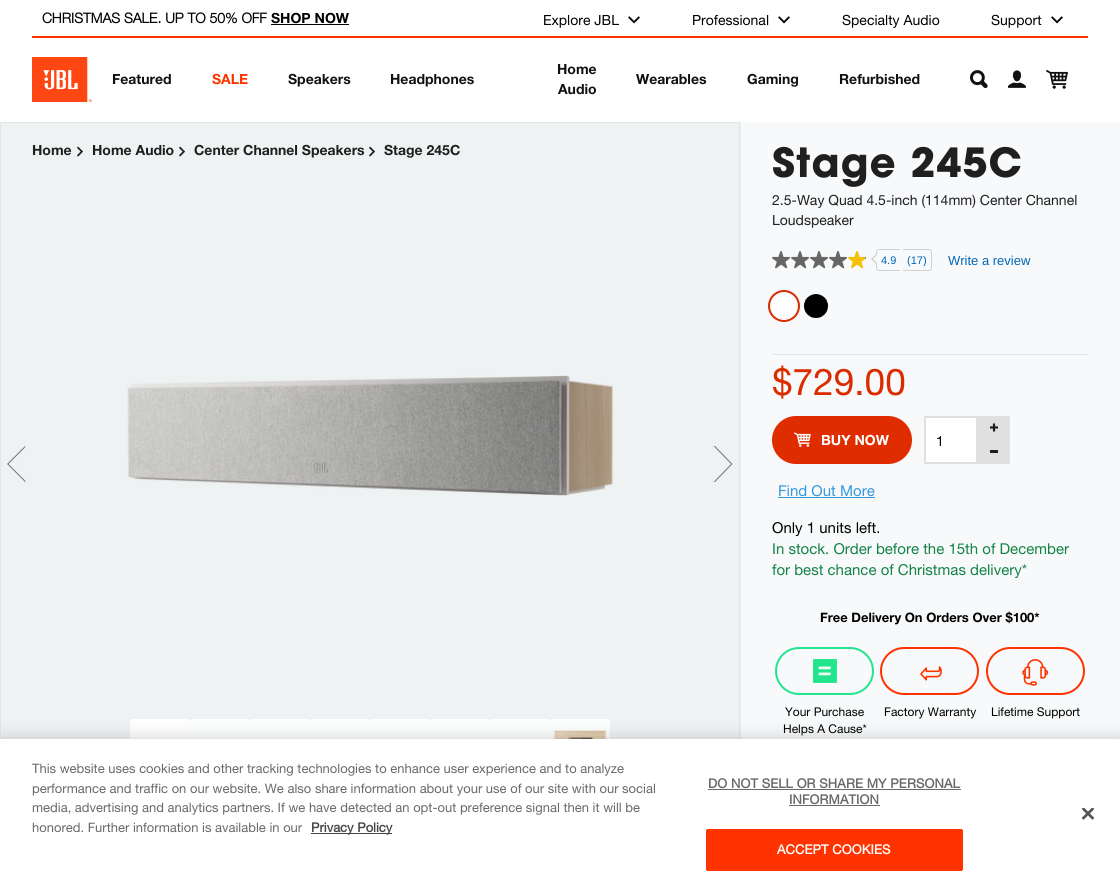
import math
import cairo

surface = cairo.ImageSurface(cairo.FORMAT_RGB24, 1120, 891)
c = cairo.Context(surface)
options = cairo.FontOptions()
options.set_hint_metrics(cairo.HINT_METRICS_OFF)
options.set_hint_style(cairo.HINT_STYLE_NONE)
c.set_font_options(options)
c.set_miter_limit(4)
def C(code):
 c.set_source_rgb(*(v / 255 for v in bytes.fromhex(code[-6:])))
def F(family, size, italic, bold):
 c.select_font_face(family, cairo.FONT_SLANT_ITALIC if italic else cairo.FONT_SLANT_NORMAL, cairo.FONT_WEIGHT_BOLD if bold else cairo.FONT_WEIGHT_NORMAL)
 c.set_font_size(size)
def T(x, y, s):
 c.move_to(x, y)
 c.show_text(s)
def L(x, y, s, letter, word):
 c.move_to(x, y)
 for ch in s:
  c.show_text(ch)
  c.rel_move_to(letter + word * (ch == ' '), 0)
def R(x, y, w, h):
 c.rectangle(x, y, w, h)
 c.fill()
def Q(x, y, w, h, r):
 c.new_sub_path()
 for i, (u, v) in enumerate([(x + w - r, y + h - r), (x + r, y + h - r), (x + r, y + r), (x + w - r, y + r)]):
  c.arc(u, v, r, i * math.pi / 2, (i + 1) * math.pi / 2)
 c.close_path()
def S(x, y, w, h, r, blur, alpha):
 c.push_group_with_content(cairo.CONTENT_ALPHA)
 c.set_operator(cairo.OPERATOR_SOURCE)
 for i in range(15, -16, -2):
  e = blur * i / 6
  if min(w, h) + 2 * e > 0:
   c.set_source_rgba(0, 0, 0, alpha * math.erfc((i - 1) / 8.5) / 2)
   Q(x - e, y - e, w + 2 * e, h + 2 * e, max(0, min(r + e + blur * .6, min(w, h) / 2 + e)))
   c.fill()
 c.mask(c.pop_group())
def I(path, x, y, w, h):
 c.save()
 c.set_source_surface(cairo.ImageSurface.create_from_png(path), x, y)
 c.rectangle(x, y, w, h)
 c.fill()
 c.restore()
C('ffffff')
c.paint()
C('ff3300')
R(32,36,1056,2)
F('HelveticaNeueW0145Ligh',14,0,1)
C('000000')
T(42,23,'CHRISTMAS SALE. UP TO 50% OFF')
F('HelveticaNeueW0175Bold',14,0,1)
T(271,23,'SHOP NOW')
R(271,24,78,1)
F('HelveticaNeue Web',14,0,0)
T(543,25,'Explore JBL')
I('1.png',628,16,12,8)
T(692,25,'Professional')
I('1.png',778,16,12,8)
T(842,25,'Specialty Audio')
T(991,25,'Support')
I('1.png',1051,16,12,8)
I('2.png',32,57,60,45)
F('HelveticaNeueW0175Bold',14,0,1)
C('111111')
T(112,84,'Featured')
C('ff3300')
T(212,84,'SALE')
C('111111')
T(288,84,'Speakers')
T(390,84,'Headphones')
T(557,74,'Home')
T(558,94,'Audio')
T(636,84,'Wearables')
T(747,84,'Gaming')
T(839,84,'Refurbished')
I('3.png',970,70,18,19)
I('4.png',1008,70,18,18)
I('5.png',1046,70,22,19)
C('f7f9fa')
R(741,122,379,617)
C('eff2f3')
R(1,123,738,616)
c.rectangle(.5,122.5,739,703)
C('e4e7e8')
c.set_line_width(1)
c.stroke()
C('78797a')
c.set_fill_rule(cairo.FILL_RULE_EVEN_ODD)
c.new_path()
c.move_to(26,446.5)
c.line_to(8.5,464)
c.line_to(26,481.5)
c.line_to(24.5,481.5)
c.line_to(7,464)
c.line_to(24.5,446.5)
c.close_path()
c.fill()
I('6.png',127,375,486,121)
c.new_path()
c.move_to(713.5,482)
c.line_to(731,464)
c.line_to(713.5,446)
c.line_to(715,446)
c.line_to(732.5,464)
c.line_to(715,482)
c.close_path()
c.fill()
C('ffffff')
Q(130,719,60,60,3)
c.fill()
C('fdfefe')
Q(190,719,60,60,3)
c.fill()
Q(250,719,60,60,3)
c.fill()
Q(310,719,60,60,3)
c.fill()
Q(370,719,60,60,3)
c.fill()
Q(430,719,60,60,3)
c.fill()
Q(490,719,60,60,3)
c.fill()
Q(550,719,60,60,3)
c.fill()
I('7.png',554,730,53,9)
C('1f1f20')
T(32,155,'Home')
I('8.png',77,146,6,11)
T(92,155,'Home Audio')
I('8.png',179,146,6,11)
T(194,155,'Center Channel Speakers')
I('8.png',369,146,6,11)
T(384,155,'Stage 245C')
C('ecedef')
R(740,122,1,617)
F('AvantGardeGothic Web',40,0,1)
C('1f1f20')
L(772,177,'Stage 245C',1.25,0)
F('HelveticaNeue Web',14,0,0)
T(772,205,'2.5-Way Quad 4.5-inch (114mm) Center Channel')
T(772,225,'Loudspeaker')
I('9.png',772,251,18,18)
I('9.png',791,251,18,18)
I('9.png',810,251,18,18)
I('9.png',829,251,18,18)
I('10.png',848,251,18,18)
C('cfd1d2')
c.new_path()
c.move_to(879,249)
c.line_to(900,249)
c.line_to(900,271)
c.line_to(879,271)
c.curve_to(877.5,271,876,269.5,876,268)
c.line_to(876,252)
c.curve_to(876,250.5,877.5,249,879,249)
c.close_path()
c.move_to(879,250)
c.line_to(900,250)
c.line_to(900,270)
c.line_to(879,270)
c.curve_to(878,270,877,269,877,268)
c.line_to(877,252)
c.curve_to(877,251,878,250,879,250)
c.close_path()
c.fill()
c.set_fill_rule(cairo.FILL_RULE_WINDING)
c.new_path()
c.move_to(876,254)
c.line_to(876,264)
c.line_to(871,259)
c.close_path()
c.fill()
C('f7f9fa')
c.new_path()
c.move_to(877,255)
c.line_to(877,263)
c.line_to(873,259)
c.close_path()
c.fill()
F('Liberation Sans',11,0,0)
C('0066b4')
T(881,264,'4.9')
C('cfd1d2')
c.set_fill_rule(cairo.FILL_RULE_EVEN_ODD)
c.new_path()
c.move_to(903,249)
c.line_to(929,249)
c.curve_to(930.5,249,932,250.5,932,252)
c.line_to(932,268)
c.curve_to(932,269.5,930.5,271,929,271)
c.line_to(903,271)
c.close_path()
c.move_to(903,250)
c.line_to(929,250)
c.curve_to(930,250,931,251,931,252)
c.line_to(931,268)
c.curve_to(931,269,930,270,929,270)
c.line_to(903,270)
c.close_path()
c.fill()
C('0066b4')
T(907,264,'(17)')
F('Liberation Sans',13,0,0)
T(948,265,'Write a review')
C('e3e5e6')
R(772,354,316,1)
c.new_path()
c.arc(784,306,15,0,2 * math.pi)
C('db2c00')
c.set_line_width(2)
c.stroke()
I('11.png',772,294,24,24)
I('12.png',804,294,24,24)
F('HelveticaNeue Web',37,0,0)
T(772,395,'$729.00')
C('df2d00')
Q(773,417,138,46,23)
c.fill_preserve()
c.stroke()
I('13.png',794,432,17,15)
F('HelveticaNeueW0175Bold',14,0,1)
C('ffffff')
T(821,445,'BUY NOW')
c.rectangle(925,417,52,46)
c.fill_preserve()
C('e0e0e0')
c.stroke()
F('HelveticaNeue Web',14,0,0)
C('000000')
T(936,446,'1')
C('e0e0e0')
R(978,416,32,48)
I('14.png',990,423,8,9)
C('1d1d1d')
R(990,450,8,3)
F('HelveticaNeue Web',15,0,0)
C('3498db')
T(778,496,'Find Out More')
R(778,497,97,1)
C('000000')
T(772,533,'Only 1 units left.')
C('148346')
T(772,554,'In stock. Order before the 15th of December')
T(772,575,'for best chance of Christmas delivery*')
F('HelveticaNeueW0175Bold',13,0,1)
C('000000')
T(820,622,'Free Delivery On Orders Over $100*')
Q(776,648,97,46,23)
C('23e58d')
c.stroke()
I('15.png',813,659,24,24)
F('HelveticaNeue Web',12,0,0)
C('000000')
T(785,716,'Your Purchase')
T(783,733,'Helps A Cause*')
Q(881,648,97,46,23)
C('ff3300')
c.stroke()
I('16.png',920,666,22,15)
C('000000')
T(884,716,'Factory Warranty')
Q(987,648,97,46,23)
C('ff3300')
c.stroke()
I('17.png',1022,659,27,27)
C('000000')
T(991,716,'Lifetime Support')
C('000000')
S(0,739,1120,152,0,9,.2)
C('ffffff')
R(0,739,1120,152)
F('HelveticaNeue Web',13,0,0)
C('696969')
T(32,773,'This website uses cookies and other tracking technologies to enhance user experience and to analyze')
T(32,793,'performance and traffic on our website. We also share information about your use of our site with our social')
T(32,812,'media, advertising and analytics partners. If we have detected an opt-out preference signal then it will be')
T(32,832,'honored. Further information is available in our')
C('474747')
R(311,833,81,1)
F('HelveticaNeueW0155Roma',13,0,1)
T(311,832,'Privacy Policy')
C('696969')
L(708,788,'DO NOT SELL OR SHARE MY PERSONAL',.1,0)
R(708,789,253,1)
L(789,804,'INFORMATION',.1,0)
R(789,805,91,1)
C('ff3300')
Q(706.5,829.5,256,41,1.5)
c.fill_preserve()
c.set_line_width(1)
c.stroke()
C('ffffff')
L(777,854,'ACCEPT COOKIES',.1,0)
I('18.png',1082,808,12,12)
surface.write_to_png('o.png')
